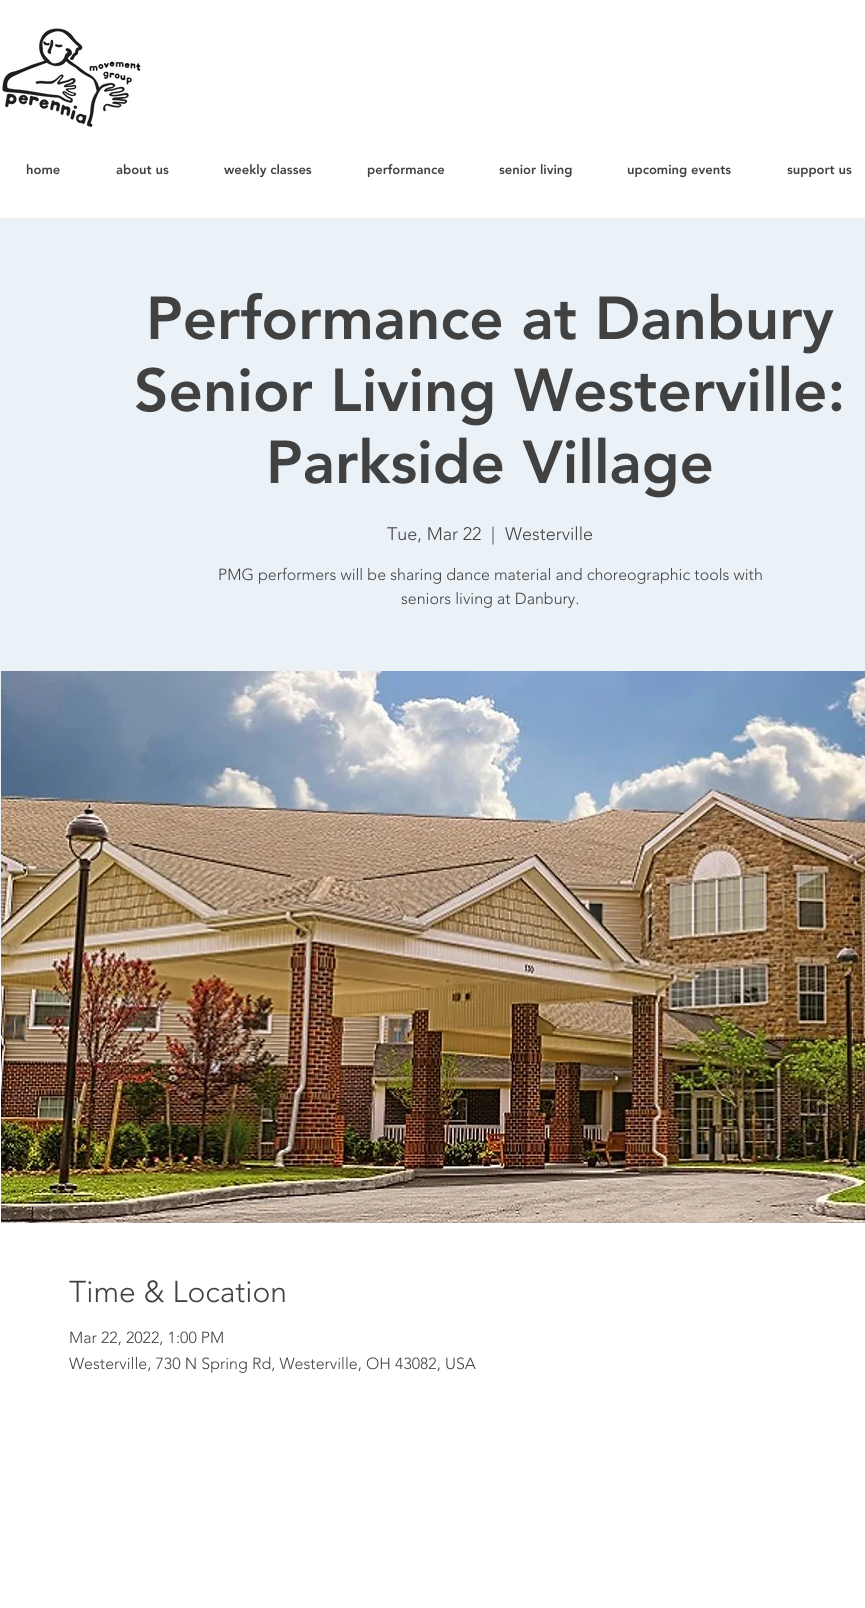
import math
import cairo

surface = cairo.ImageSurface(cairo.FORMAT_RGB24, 865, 1608)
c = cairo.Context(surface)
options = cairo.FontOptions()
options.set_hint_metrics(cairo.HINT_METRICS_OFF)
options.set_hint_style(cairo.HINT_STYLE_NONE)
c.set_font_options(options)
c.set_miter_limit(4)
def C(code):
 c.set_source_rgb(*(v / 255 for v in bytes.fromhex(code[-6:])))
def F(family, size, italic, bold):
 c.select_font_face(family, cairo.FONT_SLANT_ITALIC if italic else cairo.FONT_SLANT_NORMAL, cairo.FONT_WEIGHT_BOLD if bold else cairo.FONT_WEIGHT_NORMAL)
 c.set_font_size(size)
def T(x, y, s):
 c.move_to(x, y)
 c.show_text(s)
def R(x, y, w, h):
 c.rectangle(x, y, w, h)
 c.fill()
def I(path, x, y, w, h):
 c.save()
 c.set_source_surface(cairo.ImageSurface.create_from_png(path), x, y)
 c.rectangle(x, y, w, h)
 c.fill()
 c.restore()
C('ffffff')
c.paint()
I('1.png',2,28,139,99)
F('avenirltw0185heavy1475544 Black',13,0,0)
C('414141')
T(26,174,'home')
T(116,174,'about us')
T(224,174,'weekly classes')
T(367,174,'performance')
T(499,174,'senior living')
T(627,174,'upcoming events')
T(787,174,'support us')
C('ebf2f7')
R(0,218,865,729)
F('avenirltw0185heavy1475544 Black',60,0,0)
C('414141')
T(146,339,'Performance at Danbury')
T(134,411,'Senior Living Westerville:')
T(266,483,'Parkside Village')
F('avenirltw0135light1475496 Light',18,0,0)
T(387,540,'Tue, Mar 22')
T(491,540,'|')
T(505,540,'Westerville')
F('avenirltw0135light1475496 Light',16,0,0)
T(218,580,'PMG performers will be sharing dance material and choreographic tools with')
T(401,604,'seniors living at Danbury.')
I('2.png',1,671,864,552)
F('avenirltw0135light1475496 Light',30,0,0)
T(69,1302,'Time & Location')
F('avenirltw0135light1475496 Light',16,0,0)
T(69,1343,'Mar 22, 2022, 1:00 PM')
T(69,1369,'Westerville, 730 N Spring Rd, Westerville, OH 43082, USA')
surface.write_to_png('o.png')
